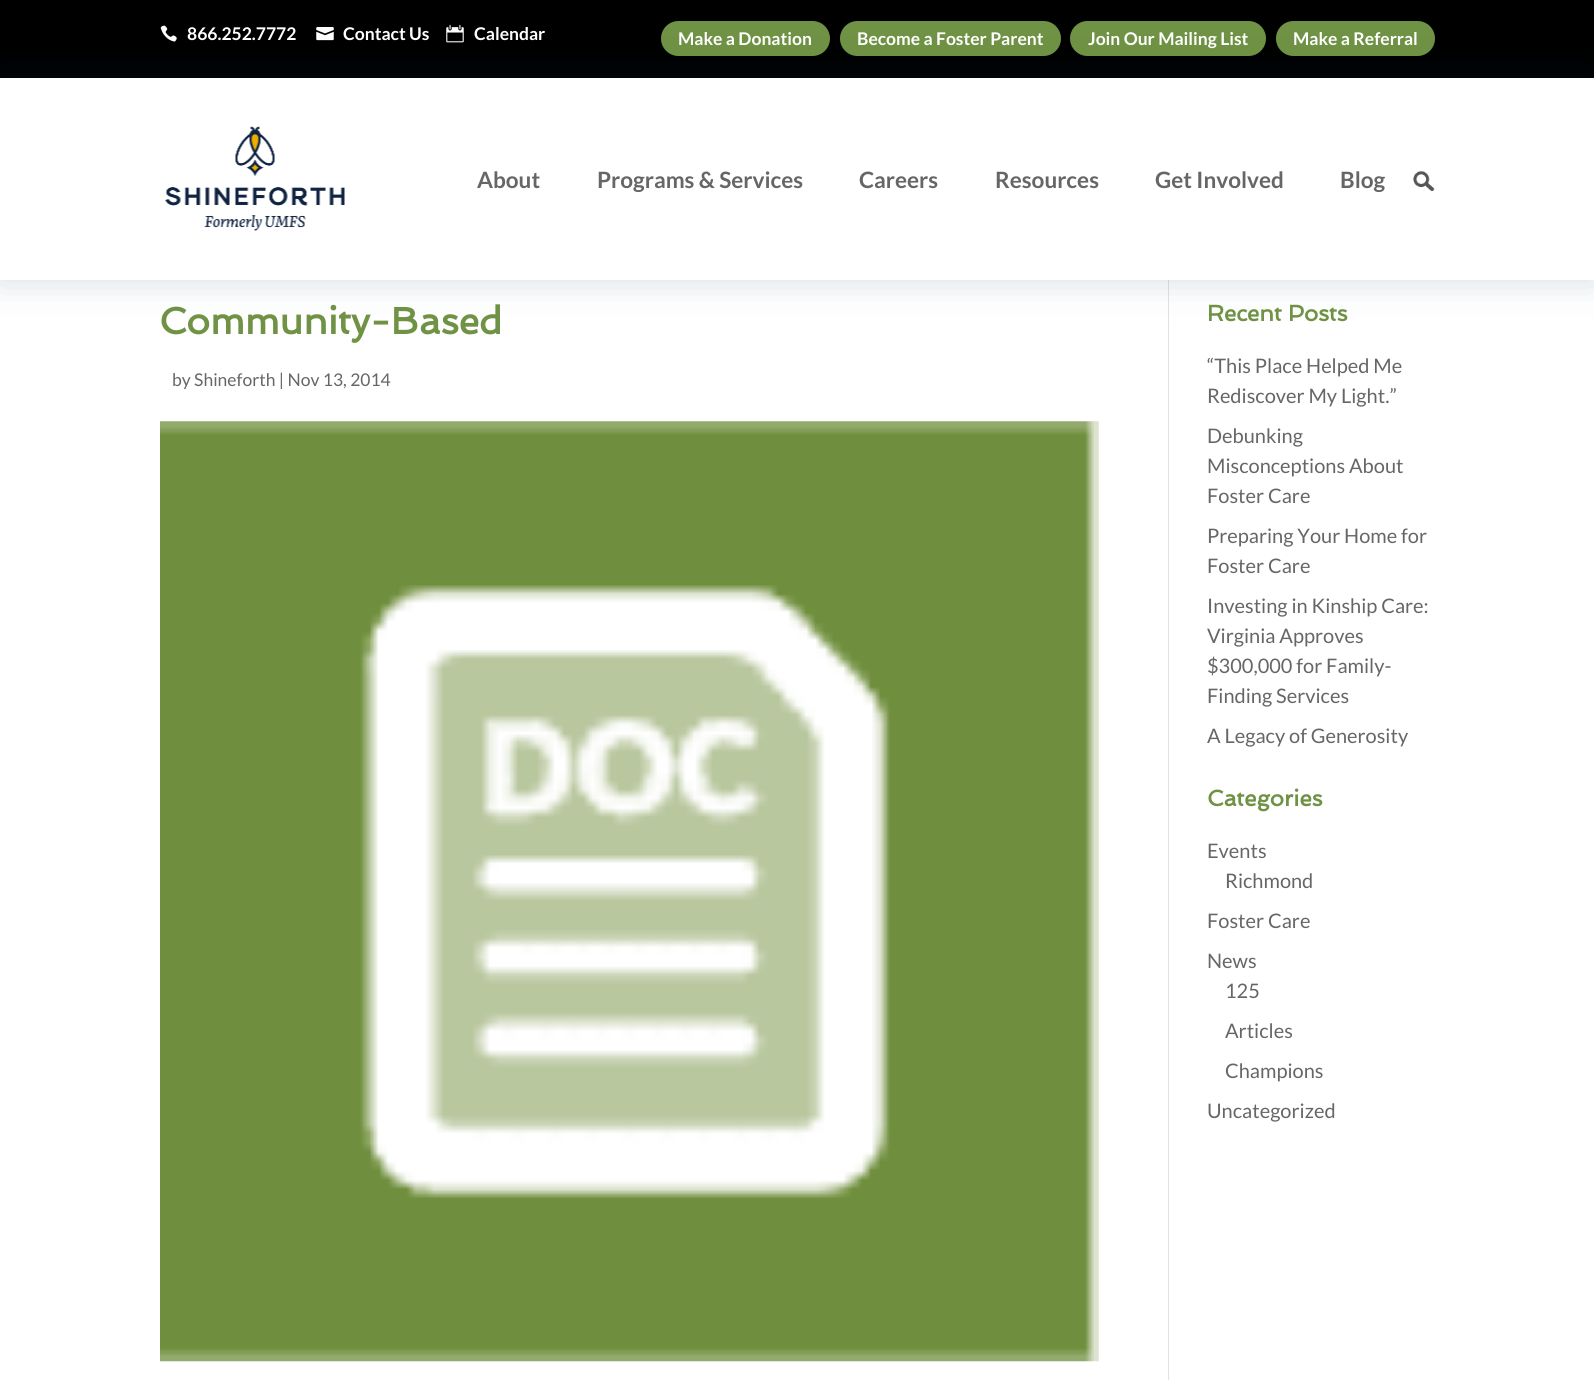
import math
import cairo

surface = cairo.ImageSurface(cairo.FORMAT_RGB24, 1594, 1380)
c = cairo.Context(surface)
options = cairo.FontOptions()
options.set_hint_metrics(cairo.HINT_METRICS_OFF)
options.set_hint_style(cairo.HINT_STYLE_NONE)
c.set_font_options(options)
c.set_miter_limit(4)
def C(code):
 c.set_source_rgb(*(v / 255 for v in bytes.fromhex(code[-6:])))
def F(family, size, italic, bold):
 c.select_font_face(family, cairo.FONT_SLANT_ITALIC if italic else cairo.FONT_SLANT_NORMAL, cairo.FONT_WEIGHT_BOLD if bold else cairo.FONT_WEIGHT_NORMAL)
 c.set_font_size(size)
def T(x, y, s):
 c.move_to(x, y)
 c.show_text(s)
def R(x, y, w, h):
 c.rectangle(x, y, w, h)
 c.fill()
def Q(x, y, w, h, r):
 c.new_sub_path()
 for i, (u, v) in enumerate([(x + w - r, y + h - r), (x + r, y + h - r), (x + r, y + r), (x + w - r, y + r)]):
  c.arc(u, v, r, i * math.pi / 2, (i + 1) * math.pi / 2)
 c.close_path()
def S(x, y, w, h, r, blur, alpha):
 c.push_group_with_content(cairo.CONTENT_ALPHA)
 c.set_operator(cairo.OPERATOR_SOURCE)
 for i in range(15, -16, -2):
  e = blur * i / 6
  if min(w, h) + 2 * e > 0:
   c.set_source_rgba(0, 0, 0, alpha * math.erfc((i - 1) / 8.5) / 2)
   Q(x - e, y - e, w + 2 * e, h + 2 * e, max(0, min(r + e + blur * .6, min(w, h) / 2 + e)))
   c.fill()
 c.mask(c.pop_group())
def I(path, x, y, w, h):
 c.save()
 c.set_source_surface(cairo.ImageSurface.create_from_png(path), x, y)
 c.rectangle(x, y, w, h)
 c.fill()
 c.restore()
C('ffffff')
c.paint()
C('000000')
R(0,0,1594,78)
I('1.png',160,25,17,17)
F('Lato',17.5,0,1)
C('ffffff')
T(187,40,'866.252.7772')
I('2.png',316,27,18,14)
T(343,40,'Contact Us')
I('3.png',446,24,18,19)
T(474,40,'Calendar')
C('6f9244')
Q(661,21,169,35,17.5)
c.fill()
C('ffffff')
T(678,45,'Make a Donation')
C('6f9244')
Q(840,21,221,35,17.5)
c.fill()
C('ffffff')
T(857,45,'Become a Foster Parent')
C('6f9244')
Q(1070,21,196,35,17.5)
c.fill()
C('ffffff')
T(1088,45,'Join Our Mailing List')
C('6f9244')
Q(1276,21,159,35,17.5)
c.fill()
C('ffffff')
T(1293,45,'Make a Referral')
C('e2e2e2')
R(1168,280,1,1100)
C('073354')
S(0,78,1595,202,0,19,.17)
C('ffffff')
R(0,78,1594,202)
I('4.png',165,126,180,105)
F('Lato',22.5,0,1)
C('666666')
T(477,188,'About')
T(597,188,'Programs & Services')
T(859,188,'Careers')
T(995,188,'Resources')
T(1155,188,'Get Involved')
T(1340,188,'Blog')
I('5.png',1413,171,22,20)
F('Spinnaker',37.5,0,1)
C('6f9244')
T(159,334,'Community-Based')
F('Lato',17.5,0,0)
C('666666')
T(172,386,'by Shineforth | Nov 13, 2014')
I('6.png',160,421,939,941)
F('Spinnaker',22.5,0,1)
C('6f9244')
T(1207,321,'Recent Posts')
F('Lato',20,0,0)
C('666666')
T(1207,373,'“This Place Helped Me')
T(1207,403,'Rediscover My Light.”')
T(1207,443,'Debunking')
T(1207,473,'Misconceptions About')
T(1207,503,'Foster Care')
T(1207,543,'Preparing Your Home for')
T(1207,573,'Foster Care')
T(1207,613,'Investing in Kinship Care:')
T(1207,643,'Virginia Approves')
T(1207,673,'$300,000 for Family-')
T(1207,703,'Finding Services')
T(1207,743,'A Legacy of Generosity')
F('Spinnaker',22.5,0,1)
C('6f9244')
T(1207,806,'Categories')
F('Lato',20,0,0)
C('666666')
T(1207,858,'Events')
T(1225,888,'Richmond')
T(1207,928,'Foster Care')
T(1207,968,'News')
T(1225,998,'125')
T(1225,1038,'Articles')
T(1225,1078,'Champions')
T(1207,1118,'Uncategorized')
surface.write_to_png('o.png')
